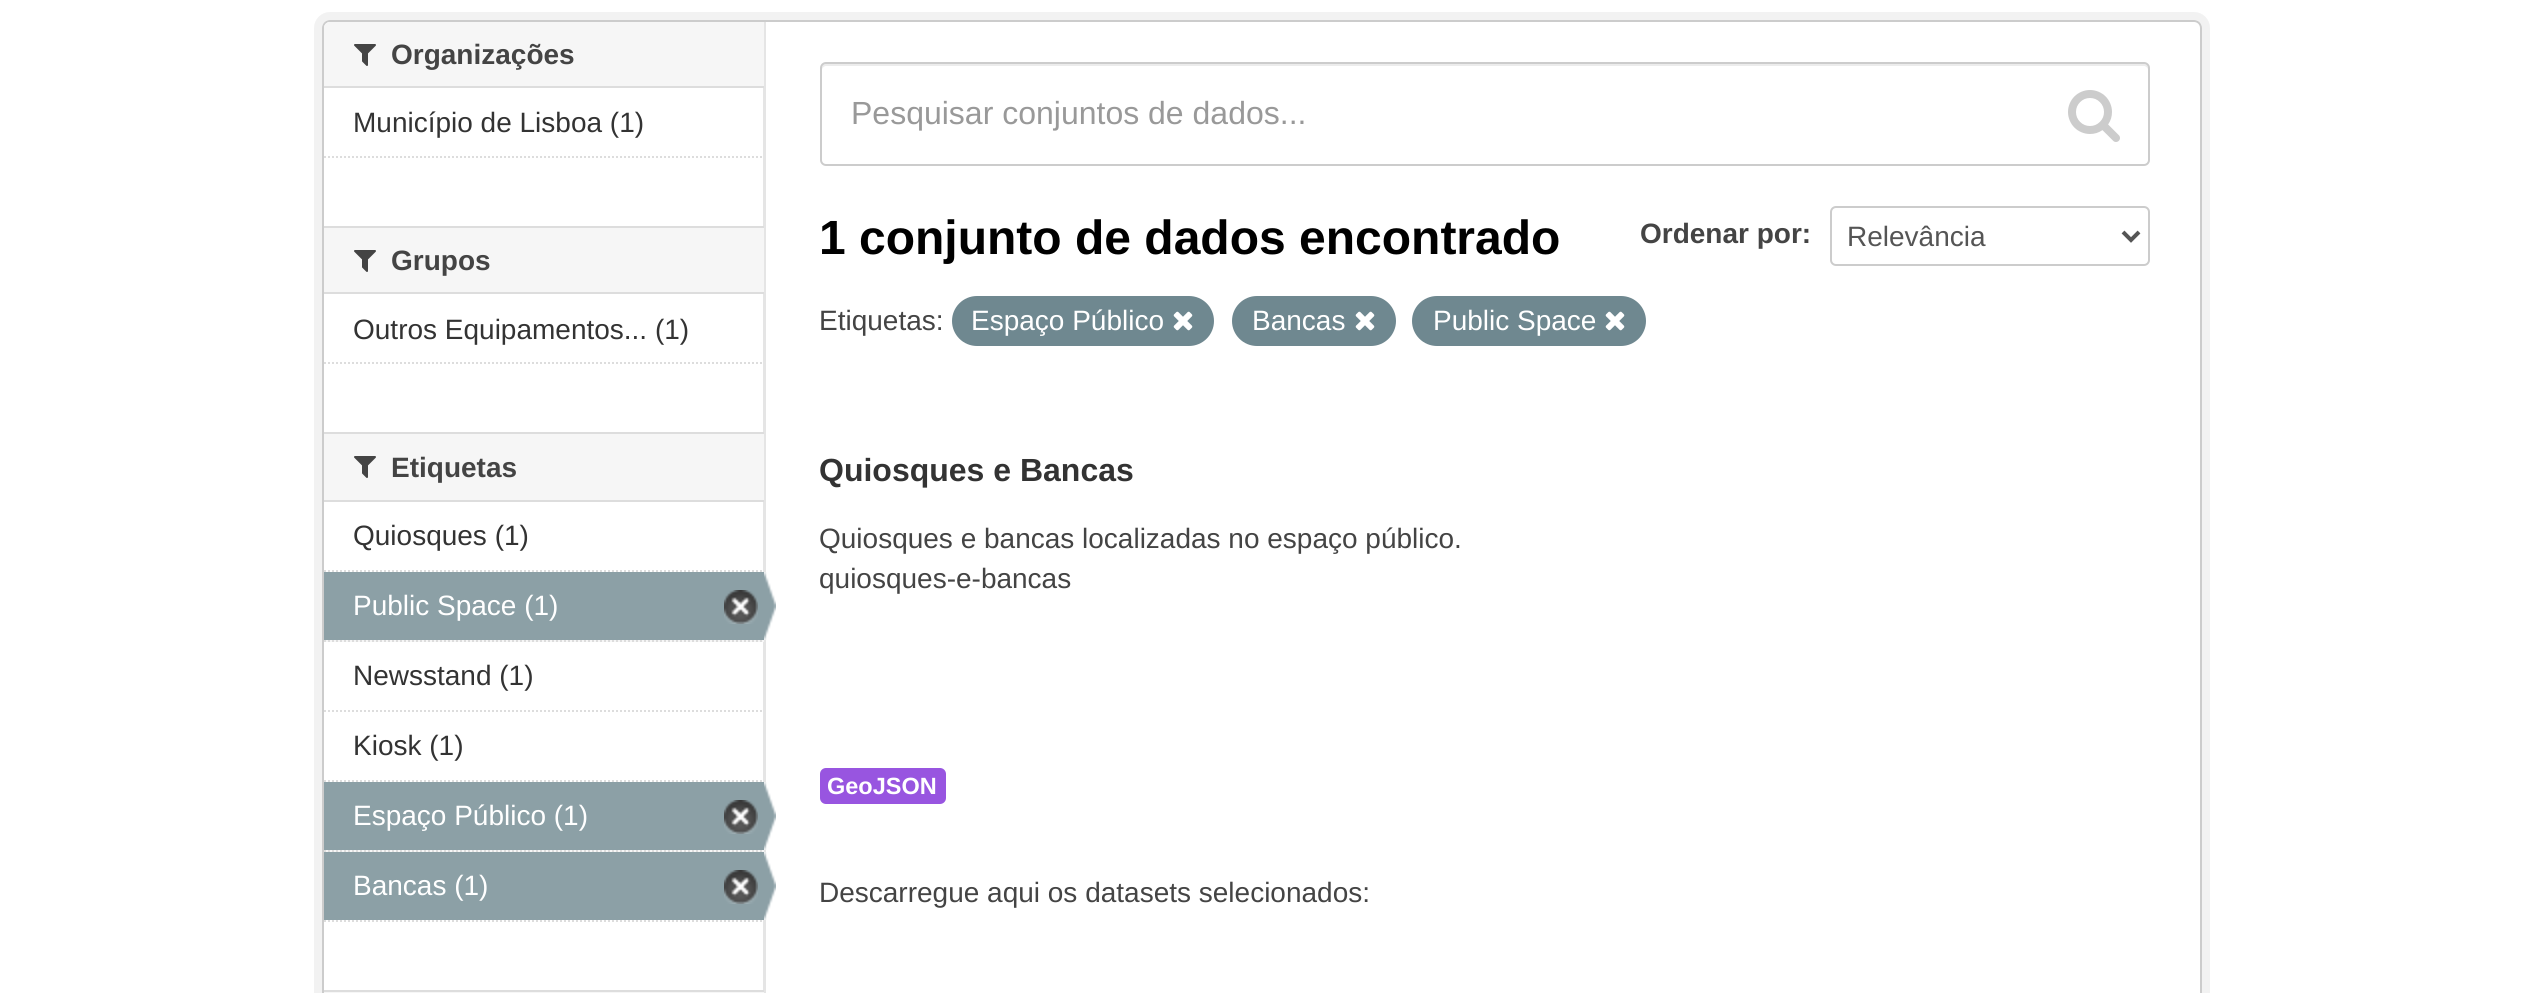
import math
import cairo

surface = cairo.ImageSurface(cairo.FORMAT_RGB24, 2521, 993)
c = cairo.Context(surface)
options = cairo.FontOptions()
options.set_hint_metrics(cairo.HINT_METRICS_OFF)
options.set_hint_style(cairo.HINT_STYLE_NONE)
c.set_font_options(options)
c.set_miter_limit(4)
def C(code):
 c.set_source_rgb(*(v / 255 for v in bytes.fromhex(code[-6:])))
def F(family, size, italic, bold):
 c.select_font_face(family, cairo.FONT_SLANT_ITALIC if italic else cairo.FONT_SLANT_NORMAL, cairo.FONT_WEIGHT_BOLD if bold else cairo.FONT_WEIGHT_NORMAL)
 c.set_font_size(size)
def T(x, y, s):
 c.move_to(x, y)
 c.show_text(s)
def R(x, y, w, h):
 c.rectangle(x, y, w, h)
 c.fill()
def Q(x, y, w, h, r):
 c.new_sub_path()
 for i, (u, v) in enumerate([(x + w - r, y + h - r), (x + r, y + h - r), (x + r, y + r), (x + w - r, y + r)]):
  c.arc(u, v, r, i * math.pi / 2, (i + 1) * math.pi / 2)
 c.close_path()
def I(path, x, y, w, h):
 c.save()
 c.set_source_surface(cairo.ImageSurface.create_from_png(path), x, y)
 c.rectangle(x, y, w, h)
 c.fill()
 c.restore()
C('ffffff')
c.paint()
Q(318,16,1888,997,12)
C('f2f2f2')
c.set_line_width(8)
c.stroke()
C('ffffff')
Q(322,20,1880,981,8)
c.fill()
C('e5e5e5')
R(763,20,3,973)
Q(323,21,1878,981,7)
C('cccccc')
c.set_line_width(2)
c.stroke()
C('f6f6f6')
c.new_path()
c.move_to(330,22)
c.line_to(764,22)
c.line_to(764,88)
c.line_to(324,88)
c.line_to(324,28)
c.curve_to(324,24.5,326.5,22,330,22)
c.close_path()
c.fill()
C('dddddd')
R(324,86,440,2)
I('1.png',354,44,22,22)
F('Liberation Sans',28,0,1)
C('444444')
T(391,64,'Organizações')
F('Liberation Sans',28,0,0)
C('333333')
T(353,132,'Município de Lisboa (1)')
c.new_path()
c.move_to(324,157)
c.line_to(764,157)
C('dddddd')
c.set_dash([2,2])
c.stroke()
C('f6f6f6')
R(324,228,440,64)
C('dddddd')
R(324,226,440,2)
R(324,292,440,2)
I('1.png',354,250,22,22)
F('Liberation Sans',28,0,1)
C('444444')
T(391,270,'Grupos')
F('Liberation Sans',28,0,0)
C('333333')
T(353,339,'Outros Equipamentos... (1)')
c.new_path()
c.move_to(324,363)
c.line_to(764,363)
C('dddddd')
c.stroke()
C('f6f6f6')
R(324,434,440,66)
C('dddddd')
R(324,432,440,2)
R(324,500,440,2)
I('1.png',354,456,22,22)
F('Liberation Sans',28,0,1)
C('444444')
T(391,477,'Etiquetas')
c.new_path()
c.move_to(324,571)
c.line_to(764,571)
C('dddddd')
c.stroke()
F('Liberation Sans',28,0,0)
C('333333')
T(353,545,'Quiosques (1)')
C('f6f6f6')
R(326,640,438,2)
c.new_path()
c.move_to(324,641)
c.line_to(764,641)
C('dddddd')
c.stroke()
C('8ca0a6')
R(324,572,440,68)
C('ffffff')
T(353,615,'Public Space (1)')
I('2.png',724,590,34,34)
I('3.png',764,572,12,68)
c.new_path()
c.move_to(324,711)
c.line_to(764,711)
C('dddddd')
c.stroke()
C('333333')
T(353,685,'Newsstand (1)')
c.new_path()
c.move_to(324,781)
c.line_to(764,781)
C('dddddd')
c.stroke()
C('333333')
T(353,755,'Kiosk (1)')
C('f6f6f6')
R(326,850,438,2)
c.new_path()
c.move_to(324,851)
c.line_to(764,851)
C('dddddd')
c.stroke()
C('8ca0a6')
R(324,782,440,68)
C('ffffff')
T(353,825,'Espaço Público (1)')
I('2.png',724,800,34,34)
I('3.png',764,782,12,68)
C('8ca0a6')
R(324,852,440,68)
C('ffffff')
T(353,895,'Bancas (1)')
I('2.png',724,870,34,34)
I('3.png',764,852,12,68)
c.new_path()
c.move_to(324,921)
c.line_to(764,921)
C('dddddd')
c.stroke()
C('f6f6f6')
R(324,992,440,1)
C('dddddd')
R(324,990,440,2)
C('ececec')
c.new_path()
c.move_to(826,66)
c.line_to(2144,66)
c.curve_to(2146,66,2148,68,2148,70)
c.curve_to(2148,67,2148,64,2144,64)
c.line_to(826,64)
c.curve_to(822,64,822,67,822,70)
c.curve_to(822,68,824,66,826,66)
c.close_path()
c.fill()
Q(821,63,1328,102,5)
C('cccccc')
c.set_dash([])
c.stroke()
F('Liberation Sans',32,0,0)
C('999999')
T(851,124,'Pesquisar conjuntos de dados...')
I('4.png',2068,90,52,52)
F('Liberation Sans',48,0,1)
C('000000')
T(819,254,'1 conjunto de dados encontrado')
F('Liberation Sans',28,0,1)
C('444444')
T(1640,243,'Ordenar por:')
Q(1831,207,318,58,5)
C('cccccc')
c.stroke()
c.new_path()
c.move_to(2123,232)
c.line_to(2131,240)
c.line_to(2139,232)
C('555555')
c.set_line_width(4)
c.stroke()
F('Liberation Sans',28,0,0)
T(1847,246,'Relevância')
C('444444')
T(819,330,'Etiquetas:')
C('6f8890')
Q(952,296,262,50,25)
c.fill()
C('ffffff')
T(971,330,'Espaço Público')
I('5.png',1173,311,20,20)
C('6f8890')
Q(1232,296,164,50,25)
c.fill()
C('ffffff')
T(1252,330,'Bancas')
I('5.png',1355,311,20,20)
C('6f8890')
Q(1412,296,234,50,25)
c.fill()
C('ffffff')
T(1433,330,'Public Space')
I('5.png',1605,311,20,20)
F('Liberation Sans',32,0,1)
C('333333')
T(819,481,'Quiosques e Bancas')
F('Liberation Sans',28,0,0)
C('444444')
T(819,548,'Quiosques e bancas localizadas no espaço público.')
T(819,588,'quiosques-e-bancas')
C('9855e0')
Q(820,768,126,36,6)
c.fill()
F('Liberation Sans',23.5,0,1)
C('ffffff')
T(827,794,'GeoJSON')
F('Liberation Sans',28,0,0)
C('444444')
T(819,902,'Descarregue aqui os datasets selecionados:')
surface.write_to_png('o.png')
